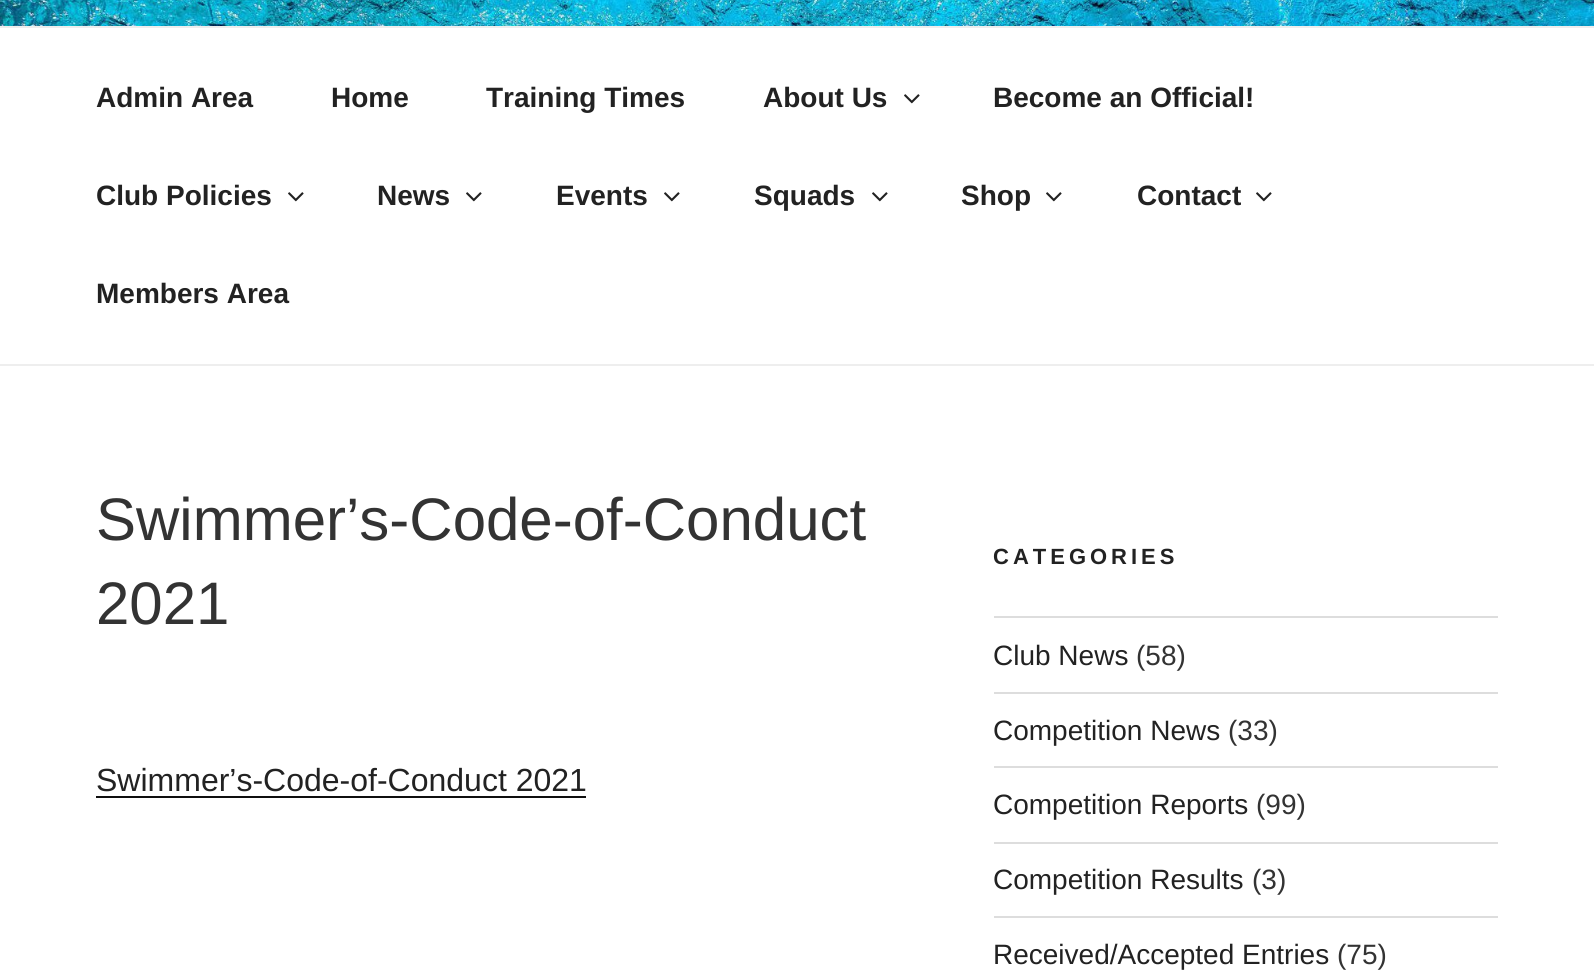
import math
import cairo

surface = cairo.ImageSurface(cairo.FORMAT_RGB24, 1594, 970)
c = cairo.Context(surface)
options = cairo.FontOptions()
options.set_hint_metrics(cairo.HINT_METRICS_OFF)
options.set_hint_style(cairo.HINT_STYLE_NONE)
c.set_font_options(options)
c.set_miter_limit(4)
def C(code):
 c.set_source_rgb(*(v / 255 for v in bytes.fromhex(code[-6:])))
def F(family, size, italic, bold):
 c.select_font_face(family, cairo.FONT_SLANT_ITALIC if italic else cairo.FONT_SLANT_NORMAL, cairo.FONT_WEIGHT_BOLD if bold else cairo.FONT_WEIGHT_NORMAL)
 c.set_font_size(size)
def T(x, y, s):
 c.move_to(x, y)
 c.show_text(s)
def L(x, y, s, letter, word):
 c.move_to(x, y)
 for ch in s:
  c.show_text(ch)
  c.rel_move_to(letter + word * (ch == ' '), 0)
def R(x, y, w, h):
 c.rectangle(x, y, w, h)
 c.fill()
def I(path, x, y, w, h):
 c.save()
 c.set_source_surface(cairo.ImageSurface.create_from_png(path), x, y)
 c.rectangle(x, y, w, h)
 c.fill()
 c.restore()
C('ffffff')
c.paint()
I('1.png',0,0,1594,26)
C('eeeeee')
R(0,26,1594,2)
R(0,364,1594,2)
F('Liberation Sans',28,0,1)
C('222222')
T(96,107,'Admin Area')
T(331,107,'Home')
T(486,107,'Training Times')
T(763,107,'About Us')
I('2.png',904,94,16,10)
T(993,107,'Become an Official!')
T(96,205,'Club Policies')
I('2.png',288,192,16,10)
T(377,205,'News')
I('2.png',466,192,16,10)
T(556,205,'Events')
I('2.png',664,192,16,10)
T(754,205,'Squads')
I('2.png',872,192,16,10)
T(961,205,'Shop')
I('2.png',1046,192,16,10)
T(1137,205,'Contact')
I('2.png',1256,192,16,10)
T(96,303,'Members Area')
F('Liberation Sans',60,0,0)
C('333333')
T(96,540,'Swimmer’s-Code-of-Conduct')
T(96,624,'2021')
F('Liberation Sans',32,0,0)
C('222222')
T(96,791,'Swimmer’s-Code-of-Conduct 2021')
C('0f0f0f')
R(96,796,490,2)
F('Liberation Sans',22,0,1)
C('222222')
L(993,564,'CATEGORIES',4,0)
C('dddddd')
R(994,616,504,2)
R(994,692,504,2)
F('Liberation Sans',28,0,0)
C('222222')
T(993,665,'Club News')
C('333333')
T(1136,665,'(58)')
C('dddddd')
R(994,766,504,2)
C('222222')
T(993,740,'Competition News')
C('333333')
T(1228,740,'(33)')
C('dddddd')
R(994,842,504,2)
C('222222')
T(993,814,'Competition Reports')
C('333333')
T(1256,814,'(99)')
C('dddddd')
R(994,916,504,2)
C('222222')
T(993,889,'Competition Results')
C('333333')
T(1252,889,'(3)')
C('222222')
T(993,964,'Received/Accepted Entries')
C('333333')
T(1337,964,'(75)')
surface.write_to_png('o.png')
